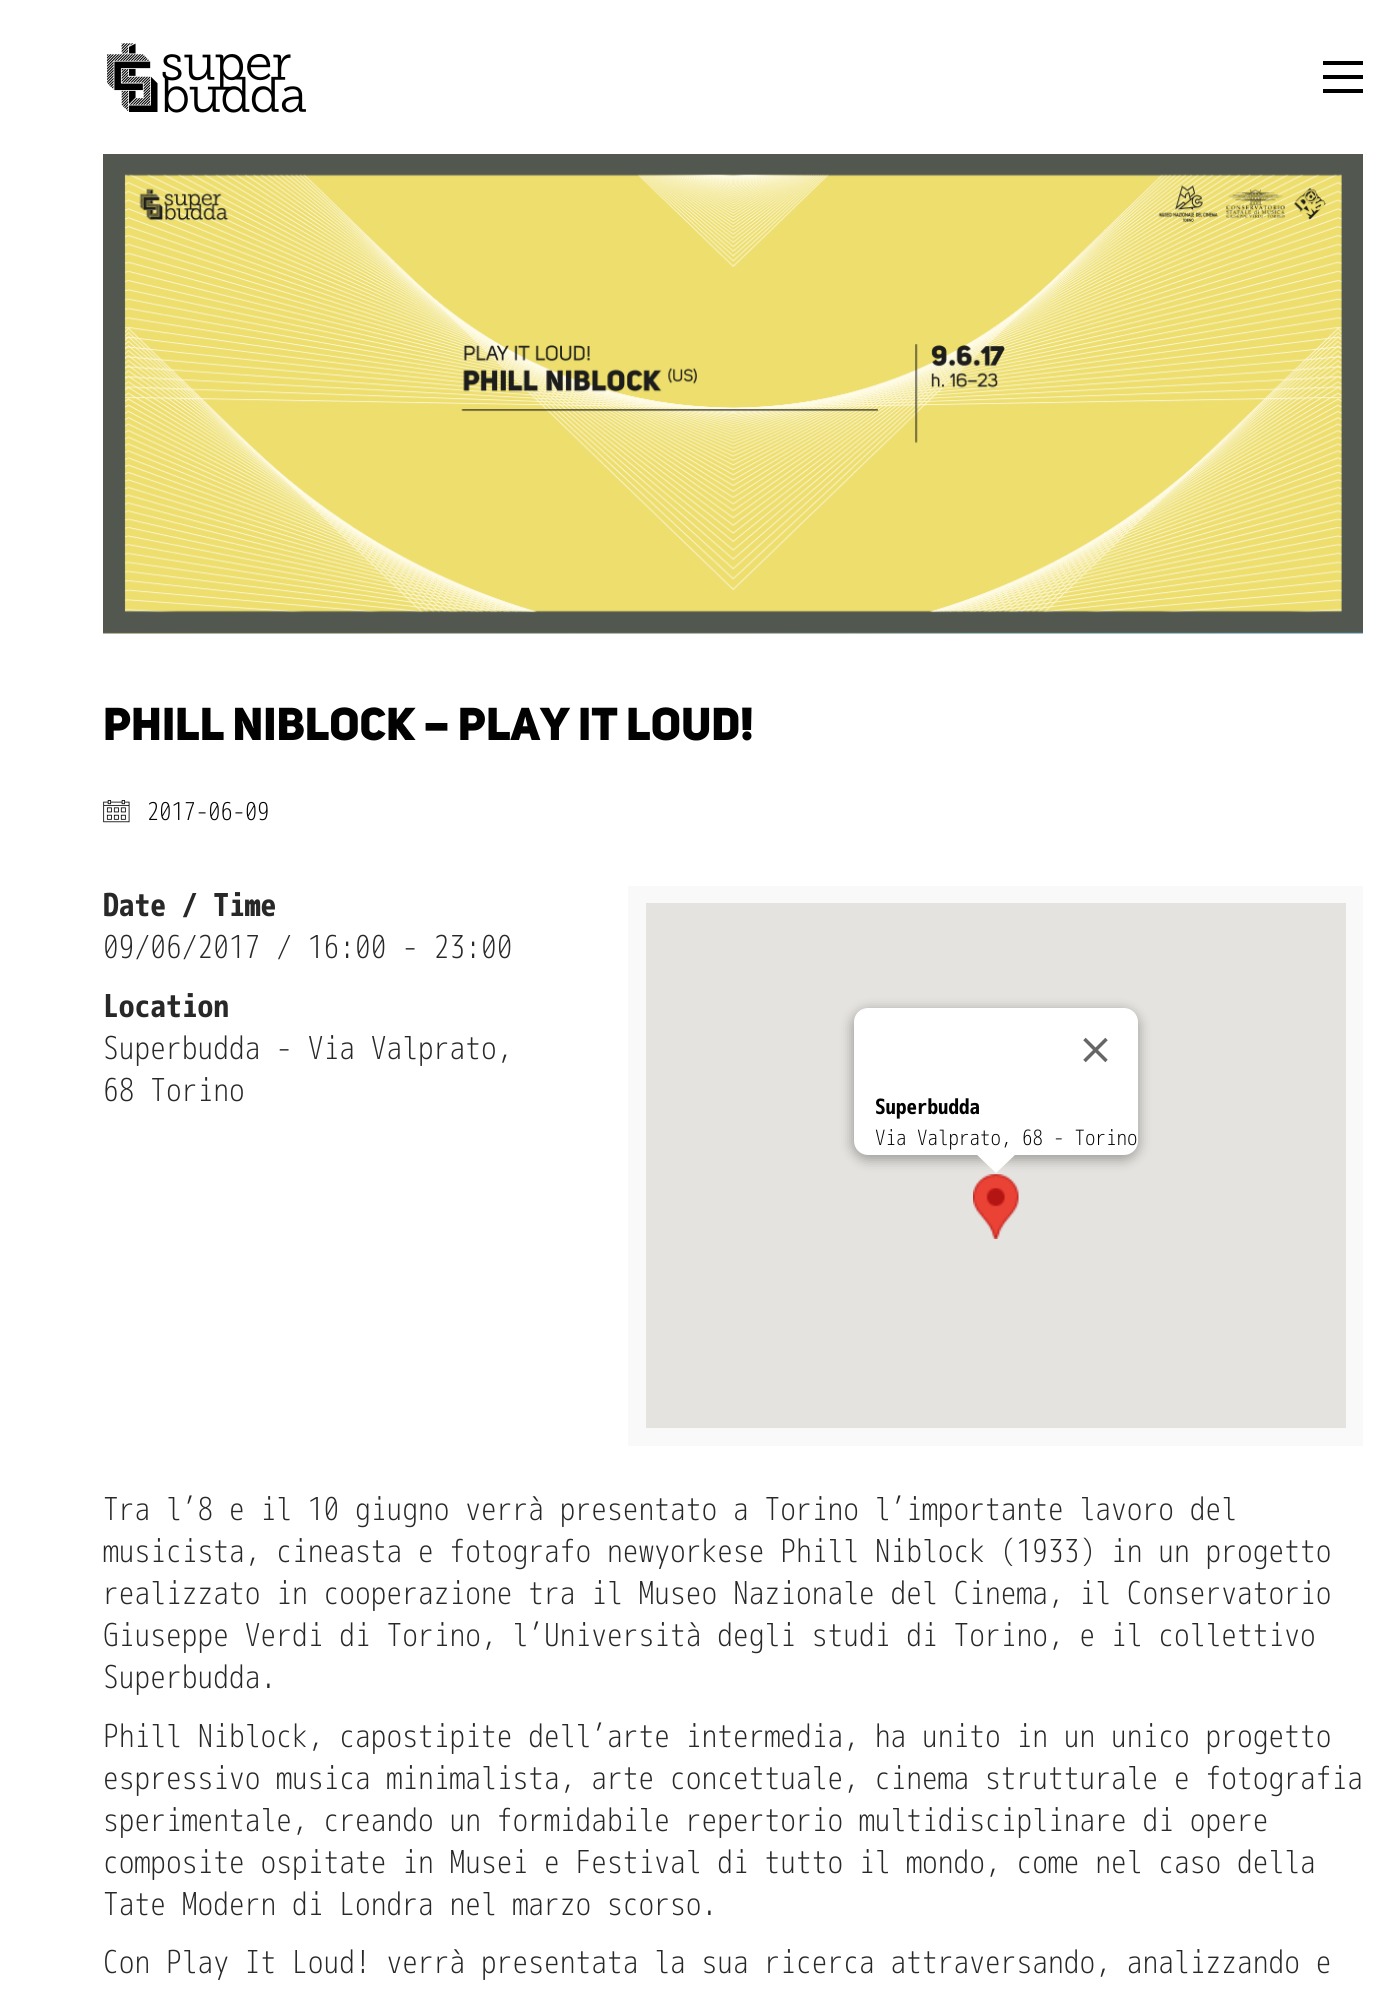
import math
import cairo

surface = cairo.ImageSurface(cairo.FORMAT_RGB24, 1382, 1995)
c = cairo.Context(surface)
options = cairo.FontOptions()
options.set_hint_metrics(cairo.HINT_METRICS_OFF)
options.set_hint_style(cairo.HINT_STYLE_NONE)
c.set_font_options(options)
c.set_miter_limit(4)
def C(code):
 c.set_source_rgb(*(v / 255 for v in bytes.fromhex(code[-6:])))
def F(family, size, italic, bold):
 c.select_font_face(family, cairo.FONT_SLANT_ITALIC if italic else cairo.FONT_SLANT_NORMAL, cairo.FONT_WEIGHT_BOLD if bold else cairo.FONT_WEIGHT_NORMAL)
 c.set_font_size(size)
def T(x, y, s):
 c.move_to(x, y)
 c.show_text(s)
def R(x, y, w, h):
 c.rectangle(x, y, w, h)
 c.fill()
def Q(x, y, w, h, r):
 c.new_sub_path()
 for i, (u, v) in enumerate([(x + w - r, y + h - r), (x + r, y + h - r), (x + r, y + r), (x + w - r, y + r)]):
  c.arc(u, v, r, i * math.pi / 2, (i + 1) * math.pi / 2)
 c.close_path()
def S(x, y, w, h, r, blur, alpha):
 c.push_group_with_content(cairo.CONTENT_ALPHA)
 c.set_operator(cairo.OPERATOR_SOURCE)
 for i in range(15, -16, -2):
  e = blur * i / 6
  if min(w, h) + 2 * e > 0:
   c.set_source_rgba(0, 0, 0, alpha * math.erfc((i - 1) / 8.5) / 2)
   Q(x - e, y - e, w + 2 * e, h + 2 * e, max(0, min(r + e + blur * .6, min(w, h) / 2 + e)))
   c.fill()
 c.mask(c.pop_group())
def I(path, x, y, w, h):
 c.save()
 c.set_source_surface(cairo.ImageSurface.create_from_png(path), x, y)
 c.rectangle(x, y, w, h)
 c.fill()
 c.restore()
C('ffffff')
c.paint()
I('1.png',106,43,200,70)
C('000000')
R(1323,61,40,4)
R(1323,75,40,4)
R(1323,89,40,4)
I('2.png',103,154,1260,480)
F('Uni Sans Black',45.5,0,0)
C('020202')
T(103,740,'PHILL NIBLOCK – PLAY IT LOUD!')
I('3.png',103,800,27,23)
F('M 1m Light',24.5,0,0)
T(147,820,'2017-06-09')
F('M 1m',31.5,0,1)
C('282828')
T(103,916,'Date / Time')
F('M 1m Light',31.5,0,0)
T(103,958,'09/06/2017 / 16:00 - 23:00')
F('M 1m',31.5,0,1)
T(103,1017,'Location')
F('M 1m Light',31.5,0,0)
T(103,1059,'Superbudda - Via Valprato,')
T(103,1101,'68 Torino')
c.rectangle(637,895,717,542)
C('f9f9f9')
c.set_line_width(18)
c.stroke()
C('e5e3df')
R(646,903,700,525)
I('5.png',973,1174,46,65)
C('000000')
S(852,1010,287,150,16,6,.3)
C('ffffff')
Q(854,1008,284,147,14)
c.fill()
I('4.png',1083,1037,25,26)
F('M 1m',21,0,1)
C('020202')
T(875,1114,'Superbudda')
F('M 1m Light',21,0,0)
T(875,1145,'Via Valprato, 68 - Torino')
C('ffffff')
c.new_path()
c.move_to(975,1153)
c.line_to(996,1173)
c.line_to(1017,1153)
c.close_path()
c.fill()
F('M 1m Light',31.5,0,0)
C('282828')
T(103,1520,'Tra l’8 e il 10 giugno verrà presentato a Torino l’importante lavoro del')
T(103,1562,'musicista, cineasta e fotografo newyorkese Phill Niblock (1933) in un progetto')
T(103,1604,'realizzato in cooperazione tra il Museo Nazionale del Cinema, il Conservatorio')
T(103,1646,'Giuseppe Verdi di Torino, l’Università degli studi di Torino, e il collettivo')
T(103,1688,'Superbudda.')
T(103,1747,'Phill Niblock, capostipite dell’arte intermedia, ha unito in un unico progetto')
T(103,1789,'espressivo musica minimalista, arte concettuale, cinema strutturale e fotografia')
T(103,1831,'sperimentale, creando un formidabile repertorio multidisciplinare di opere')
T(103,1873,'composite ospitate in Musei e Festival di tutto il mondo, come nel caso della')
T(103,1915,'Tate Modern di Londra nel marzo scorso.')
T(103,1973,'Con Play It Loud! verrà presentata la sua ricerca attraversando, analizzando e')
surface.write_to_png('o.png')
